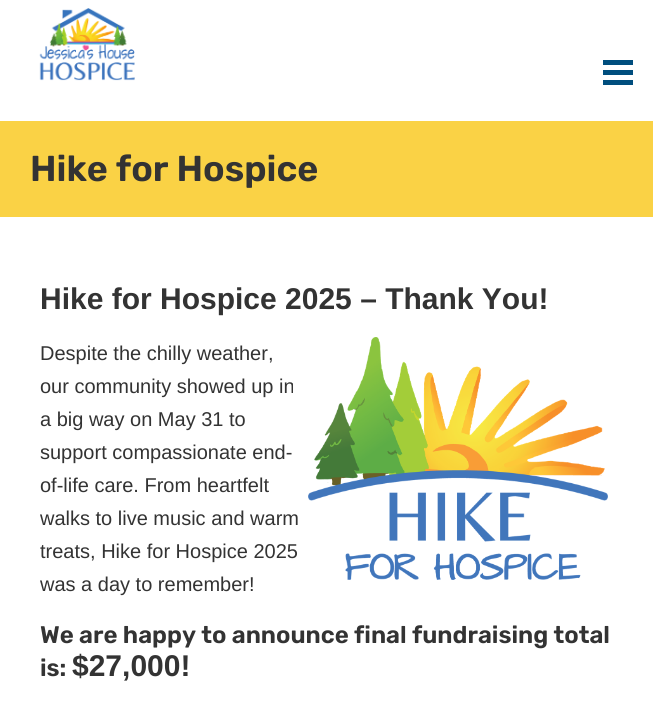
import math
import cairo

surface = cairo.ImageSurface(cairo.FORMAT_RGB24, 653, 709)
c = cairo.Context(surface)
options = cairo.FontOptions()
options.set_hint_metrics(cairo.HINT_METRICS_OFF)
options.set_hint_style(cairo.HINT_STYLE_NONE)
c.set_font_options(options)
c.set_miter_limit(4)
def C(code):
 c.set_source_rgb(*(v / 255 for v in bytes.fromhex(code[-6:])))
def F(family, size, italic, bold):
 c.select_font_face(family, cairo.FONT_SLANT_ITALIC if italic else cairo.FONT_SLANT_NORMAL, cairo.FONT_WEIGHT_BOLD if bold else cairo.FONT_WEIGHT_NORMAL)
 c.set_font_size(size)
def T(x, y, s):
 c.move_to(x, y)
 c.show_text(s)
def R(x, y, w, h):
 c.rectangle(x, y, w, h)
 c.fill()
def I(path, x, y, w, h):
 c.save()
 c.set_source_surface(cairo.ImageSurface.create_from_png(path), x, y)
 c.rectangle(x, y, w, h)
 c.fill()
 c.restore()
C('ffffff')
c.paint()
I('1.png',39,8,96,73)
C('004e7e')
R(603,60,30,5)
R(603,70,30,5)
R(603,80,30,5)
C('fad245')
R(0,121,653,96)
F('Rubik SemiBold',36,0,0)
C('333333')
T(30,181,'Hike for Hospice')
F('Liberation Sans',30,0,1)
T(40,309,'Hike for Hospice 2025 – Thank You!')
F('Liberation Sans',20,0,0)
T(40,360,'Despite the chilly weather,')
T(40,393,'our community showed up in')
T(40,426,'a big way on May 31 to')
T(40,459,'support compassionate end-')
T(40,492,'of-life care. From heartfelt')
T(40,525,'walks to live music and warm')
T(40,558,'treats, Hike for Hospice 2025')
T(40,591,'was a day to remember!')
I('2.png',308,337,300,243)
F('Rubik SemiBold',24,0,0)
T(40,643,'We are happy to announce final fundraising total')
T(40,676,'is:')
F('Liberation Sans',30,0,1)
T(72,676,'$27,000!')
surface.write_to_png('o.png')
